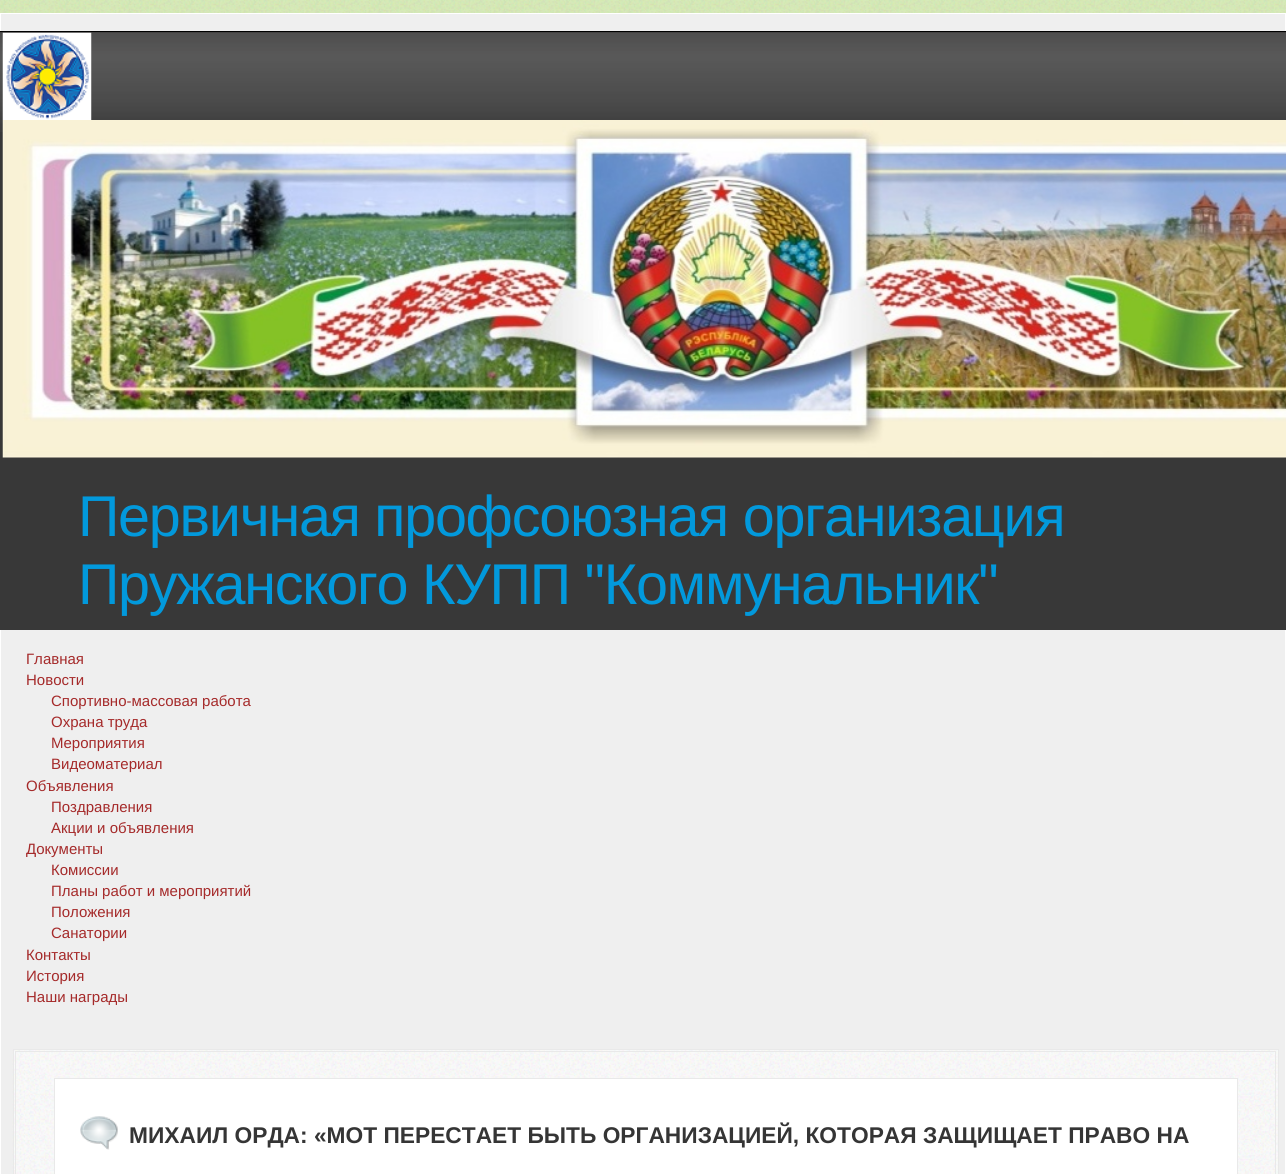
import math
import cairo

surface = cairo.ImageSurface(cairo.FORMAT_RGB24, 1286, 1174)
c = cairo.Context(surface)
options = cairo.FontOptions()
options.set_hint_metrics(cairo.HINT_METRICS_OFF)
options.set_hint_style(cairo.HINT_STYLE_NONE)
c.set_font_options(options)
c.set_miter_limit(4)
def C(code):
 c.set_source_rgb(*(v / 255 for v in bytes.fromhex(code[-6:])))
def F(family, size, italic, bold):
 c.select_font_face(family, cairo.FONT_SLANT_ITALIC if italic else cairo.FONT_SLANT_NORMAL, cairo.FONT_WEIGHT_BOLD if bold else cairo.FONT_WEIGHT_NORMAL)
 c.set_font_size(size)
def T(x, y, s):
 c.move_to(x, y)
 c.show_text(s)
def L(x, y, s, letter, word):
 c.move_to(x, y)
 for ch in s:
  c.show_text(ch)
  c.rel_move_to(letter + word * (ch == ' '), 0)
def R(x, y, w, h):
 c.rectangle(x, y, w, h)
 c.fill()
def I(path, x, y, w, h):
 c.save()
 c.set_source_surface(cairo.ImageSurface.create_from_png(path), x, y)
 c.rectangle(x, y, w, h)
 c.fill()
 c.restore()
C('d3e8b2')
c.paint()
I('1.png',0,0,1286,13)
C('efefef')
c.rectangle(.5,13.5,1285,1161)
c.fill_preserve()
C('ffffff')
c.set_line_width(1)
c.stroke()
C('383838')
R(0,32,1286,598)
I('2.png',0,32,1286,100)
C('000000')
c.new_path()
c.move_to(-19,32)
c.curve_to(-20,32,-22,33,-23,34)
c.line_to(-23,33)
c.line_to(-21,31)
c.line_to(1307,31)
c.line_to(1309,33)
c.line_to(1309,34)
c.curve_to(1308,33,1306,32,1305,32)
c.close_path()
c.fill()
I('3.png',2,32,90,88)
I('4.png',2,120,1284,338)
F('Liberation Sans',57.5,0,0)
C('0299dc')
L(78,536,'Первичная профсоюзная организация',-1.25,0)
L(78,604,'Пружанского КУПП "Коммунальник"',-1.25,0)
F('Liberation Sans',15,0,0)
C('a52a2a')
T(26,664,'Главная')
T(26,685,'Новости')
T(51,706,'Спортивно-массовая работа')
T(51,727,'Охрана труда')
T(51,748,'Мероприятия')
T(51,769,'Видеоматериал')
T(26,791,'Объявления')
T(51,812,'Поздравления')
T(51,833,'Акции и объявления')
T(26,854,'Документы')
T(51,875,'Комиссии')
T(51,896,'Планы работ и мероприятий')
T(51,917,'Положения')
T(51,938,'Санатории')
T(26,960,'Контакты')
T(26,981,'История')
T(26,1002,'Наши награды')
C('f9f9f9')
R(14,1050,1264,124)
I('5.png',12,1049,1266,125)
c.rectangle(13.5,1049.5,1265,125)
C('e9e9e9')
c.stroke()
c.rectangle(15.5,1051.5,1260,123)
c.stroke()
C('ffffff')
c.rectangle(54.5,1078.5,1183,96)
c.fill_preserve()
C('e9e9e9')
c.stroke()
I('6.png',80,1116,38,34)
F('Liberation Sans',22.75,0,1)
C('353535')
T(129,1143,'МИХАИЛ ОРДА: «МОТ ПЕРЕСТАЕТ БЫТЬ ОРГАНИЗАЦИЕЙ, КОТОРАЯ ЗАЩИЩАЕТ ПРАВО НА')
surface.write_to_png('o.png')
